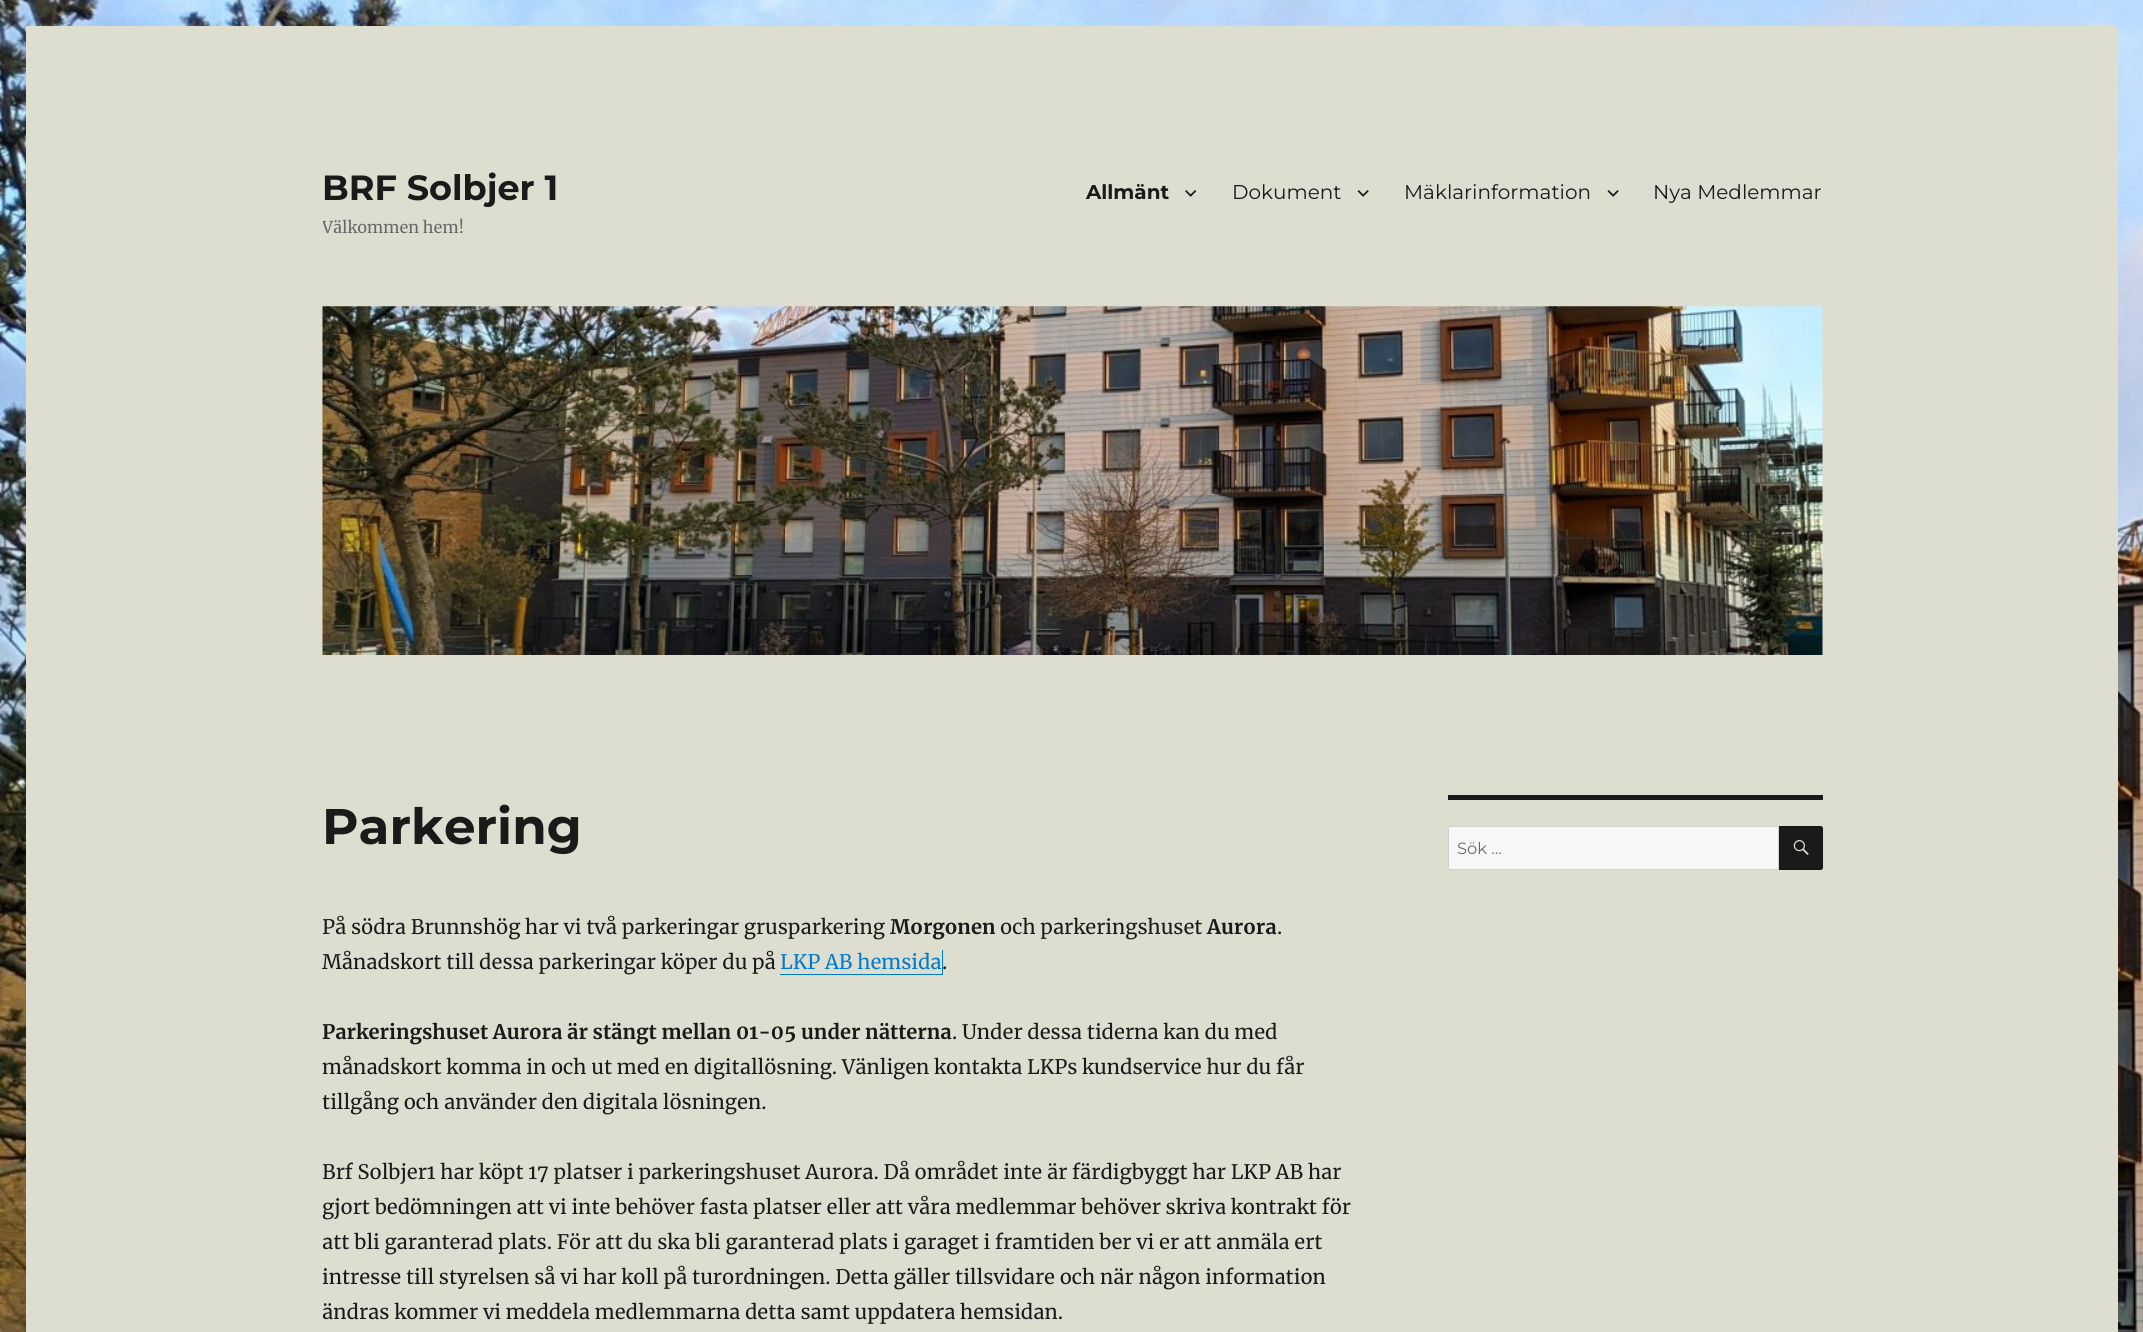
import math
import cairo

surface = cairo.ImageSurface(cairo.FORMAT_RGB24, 2143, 1332)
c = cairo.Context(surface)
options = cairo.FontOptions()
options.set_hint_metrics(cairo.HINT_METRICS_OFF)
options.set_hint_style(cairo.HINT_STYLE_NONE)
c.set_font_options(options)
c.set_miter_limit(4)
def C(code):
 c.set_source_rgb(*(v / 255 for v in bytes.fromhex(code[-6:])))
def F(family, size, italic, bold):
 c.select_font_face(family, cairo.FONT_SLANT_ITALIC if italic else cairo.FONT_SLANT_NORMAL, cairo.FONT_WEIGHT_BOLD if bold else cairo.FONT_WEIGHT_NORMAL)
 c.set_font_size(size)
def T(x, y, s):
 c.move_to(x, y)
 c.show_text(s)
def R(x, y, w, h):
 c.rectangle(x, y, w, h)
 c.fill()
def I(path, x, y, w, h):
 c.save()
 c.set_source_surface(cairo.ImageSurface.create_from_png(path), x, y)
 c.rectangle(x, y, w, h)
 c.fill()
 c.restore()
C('ffffff')
c.paint()
I('1.png',0,0,2143,1332)
C('ddddd0')
R(26,26,2092,1306)
F('Montserrat Thin',35,0,0)
C('1a1a1a')
T(322,200,'BRF Solbjer 1')
c.save()
c.rectangle(323,166,236,70)
c.clip()
F('Merriweather',16.25,0,0)
C('686868')
T(322,233,'Välkommen hem!')
c.restore()
F('Montserrat Thin',20,0,0)
T(1086,199,'Allmänt')
I('2.png',1185,190,12,7)
F('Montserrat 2 Thin',20,0,0)
T(1232,199,'Dokument')
I('3.png',1357,190,12,7)
T(1404,199,'Mäklarinformation')
I('3.png',1607,190,12,7)
T(1653,199,'Nya Medlemmar')
I('4.png',322,306,1501,349)
F('Montserrat Thin',50,0,0)
T(322,844,'Parkering')
F('Merriweather',20,0,0)
T(322,934,'På södra Brunnshög har vi två parkeringar grusparkering')
F('Merriweather',20,0,1)
T(890,934,'Morgonen')
F('Merriweather',20,0,0)
T(1000,934,'och parkeringshuset')
F('Merriweather',20,0,1)
T(1207,934,'Aurora')
F('Merriweather',20,0,0)
T(1277,934,'.')
T(322,969,'Månadskort till dessa parkeringar köper du på')
C('007acc')
c.new_path()
c.move_to(780,974)
c.line_to(780,975)
c.line_to(943,975)
c.line_to(943,950)
c.line_to(942,950)
c.line_to(942,974)
c.close_path()
c.fill()
T(780,969,'LKP AB hemsida')
C('1a1a1a')
T(942,969,'.')
F('Merriweather',20,0,1)
T(322,1039,'Parkeringshuset Aurora är stängt mellan 01-05 under nätterna')
F('Merriweather',20,0,0)
T(952,1039,'. Under dessa tiderna kan du med')
T(322,1074,'månadskort komma in och ut med en digitallösning. Vänligen kontakta LKPs kundservice hur du får')
T(322,1109,'tillgång och använder den digitala lösningen.')
T(322,1179,'Brf Solbjer1 har köpt 17 platser i parkeringshuset Aurora. Då området inte är färdigbyggt har LKP AB har')
T(322,1214,'gjort bedömningen att vi inte behöver fasta platser eller att våra medlemmar behöver skriva kontrakt för')
T(322,1249,'att bli garanterad plats. För att du ska bli garanterad plats i garaget i framtiden ber vi er att anmäla ert')
T(322,1284,'intresse till styrelsen så vi har koll på turordningen. Detta gäller tillsvidare och när någon information')
T(322,1319,'ändras kommer vi meddela medlemmarna detta samt uppdatera hemsidan.')
R(1448,795,375,5)
C('f7f7f7')
c.new_path()
c.move_to(1450.5,826.5)
c.line_to(1778.5,826.5)
c.line_to(1778.5,869.5)
c.line_to(1450.5,869.5)
c.curve_to(1449.5,869.5,1448.5,868.5,1448.5,867.5)
c.line_to(1448.5,828.5)
c.curve_to(1448.5,827.5,1449.5,826.5,1450.5,826.5)
c.close_path()
c.fill_preserve()
C('d1d1d1')
c.set_line_width(1)
c.stroke()
F('Montserrat 2 Thin',16.25,0,0)
C('686868')
T(1457,854,'Sök …')
C('1a1a1a')
c.new_path()
c.move_to(1779,826)
c.line_to(1820.5,826)
c.curve_to(1822,826,1823,827,1823,828.5)
c.line_to(1823,867.5)
c.curve_to(1823,869,1822,870,1820.5,870)
c.line_to(1779,870)
c.close_path()
c.fill()
I('5.png',1793,840,16,15)
surface.write_to_png('o.png')
